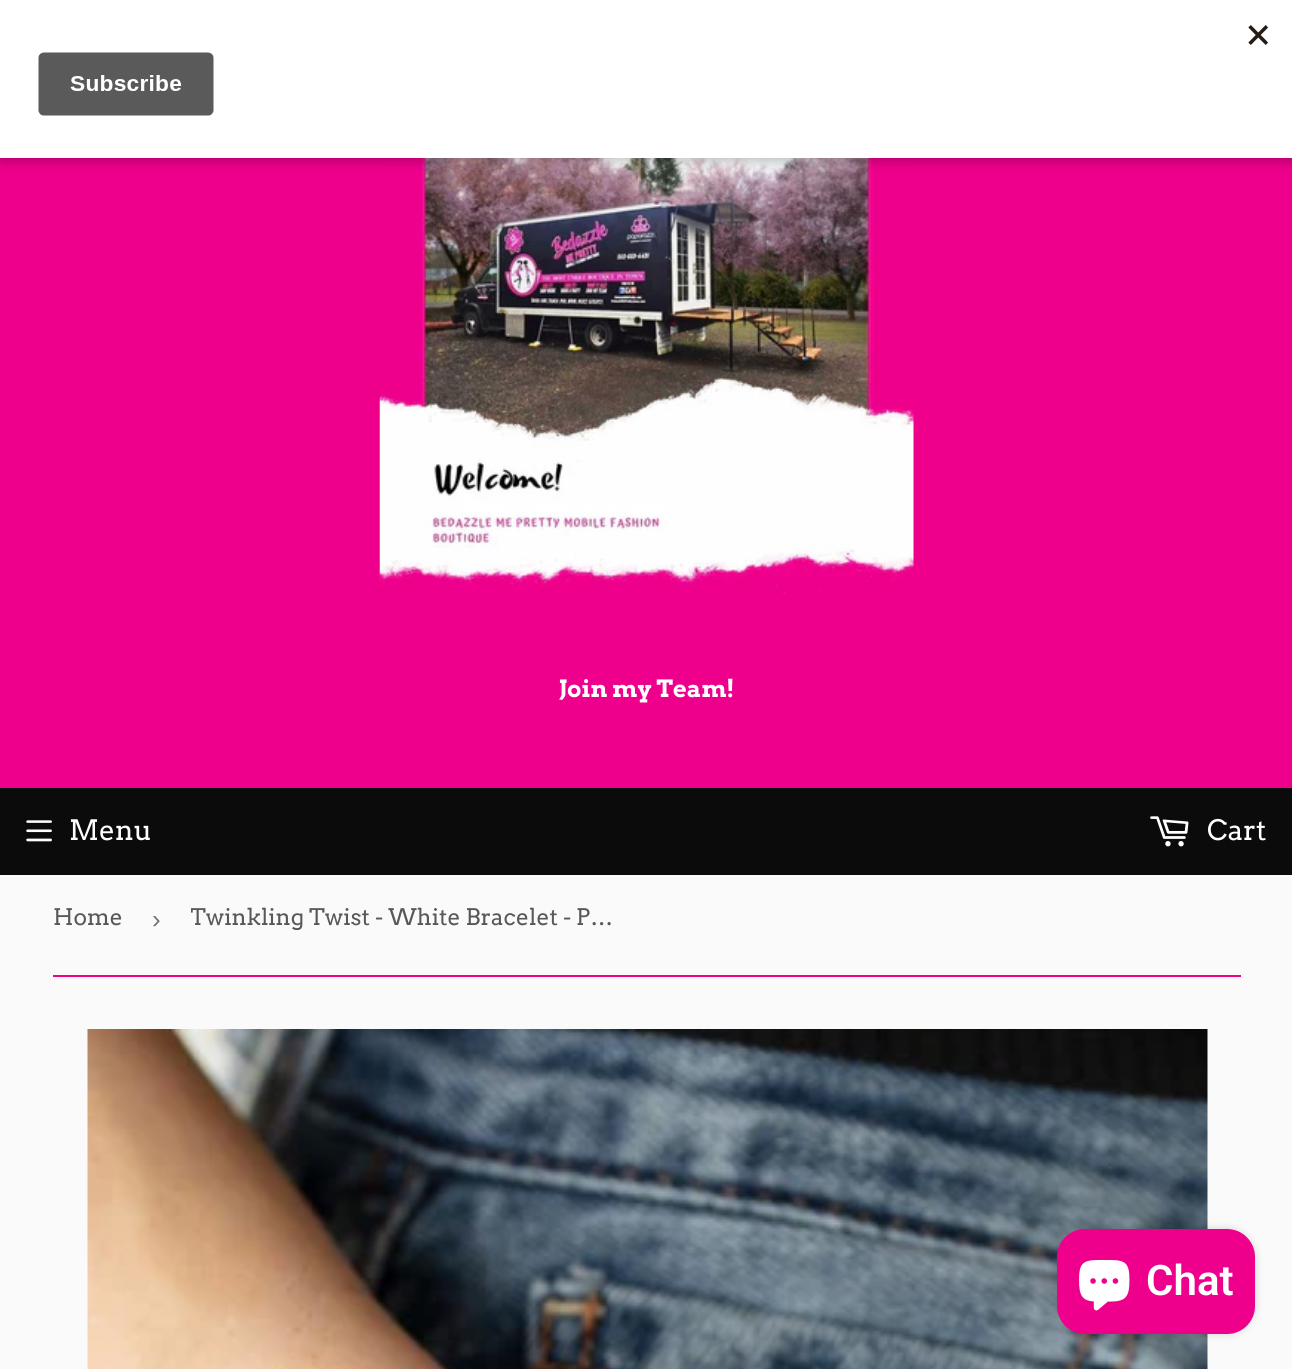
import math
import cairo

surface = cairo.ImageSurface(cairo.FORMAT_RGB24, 1292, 1369)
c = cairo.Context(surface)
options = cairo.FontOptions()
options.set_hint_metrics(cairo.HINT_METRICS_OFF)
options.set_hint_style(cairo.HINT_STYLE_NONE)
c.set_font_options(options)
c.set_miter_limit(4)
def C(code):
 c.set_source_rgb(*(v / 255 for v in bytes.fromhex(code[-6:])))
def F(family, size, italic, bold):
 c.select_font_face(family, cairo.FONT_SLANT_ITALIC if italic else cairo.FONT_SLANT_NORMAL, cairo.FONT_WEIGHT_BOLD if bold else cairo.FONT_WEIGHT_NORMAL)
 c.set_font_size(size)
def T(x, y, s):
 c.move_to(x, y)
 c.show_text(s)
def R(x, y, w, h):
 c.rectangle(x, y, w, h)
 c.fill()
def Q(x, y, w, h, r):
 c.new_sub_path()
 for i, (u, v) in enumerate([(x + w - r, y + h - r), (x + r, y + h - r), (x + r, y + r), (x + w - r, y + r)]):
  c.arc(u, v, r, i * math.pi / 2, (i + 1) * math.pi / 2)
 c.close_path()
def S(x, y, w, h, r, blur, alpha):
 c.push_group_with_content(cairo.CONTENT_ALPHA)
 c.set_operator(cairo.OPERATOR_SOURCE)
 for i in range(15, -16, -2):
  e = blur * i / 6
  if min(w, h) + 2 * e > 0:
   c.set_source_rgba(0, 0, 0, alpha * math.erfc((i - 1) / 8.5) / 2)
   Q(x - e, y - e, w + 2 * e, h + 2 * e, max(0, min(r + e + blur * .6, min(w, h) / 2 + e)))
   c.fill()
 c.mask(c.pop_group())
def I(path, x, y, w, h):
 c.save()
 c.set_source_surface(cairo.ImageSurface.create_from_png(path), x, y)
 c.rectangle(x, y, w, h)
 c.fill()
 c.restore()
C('fafafa')
c.paint()
C('ee008c')
R(0,158,1292,630)
I('2.png',379,158,535,436)
C('000000')
S(0,5,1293,158,0,5,.2)
C('ffffff')
R(0,0,1292,158)
I('1.png',38,25,1230,91)
F('Arvo',23.75,0,1)
T(559,697,'Join my Team!')
C('0b0b0c')
R(0,788,1292,87)
I('3.png',26,820,26,22)
F('Arvo',28,0,0)
C('ffffff')
T(69,840,'Menu')
I('4.png',1150,816,39,31)
T(1207,840,'Cart')
C('ee008c')
R(53,975,1188,2)
F('Arvo',22.75,0,0)
C('585858')
T(53,925,'Home')
F('Liberation Sans',26,0,0)
C('767676')
T(152,928,'›')
c.save()
c.rectangle(191,875,437,89)
c.clip()
F('Arvo',22.75,0,0)
C('585858')
T(190,925,'Twinkling Twist - White Bracelet - P…')
c.restore()
I('5.png',87,1029,1121,340)
C('000000')
S(1057,1229,198,105,28,4.5,.15)
C('ee008c')
Q(1057,1229,198,105,28)
c.fill()
I('6.png',1079,1260,51,51)
F('Roboto SemiBold',42,0,0)
C('ffffff')
T(1146,1295,'Chat')
surface.write_to_png('o.png')
